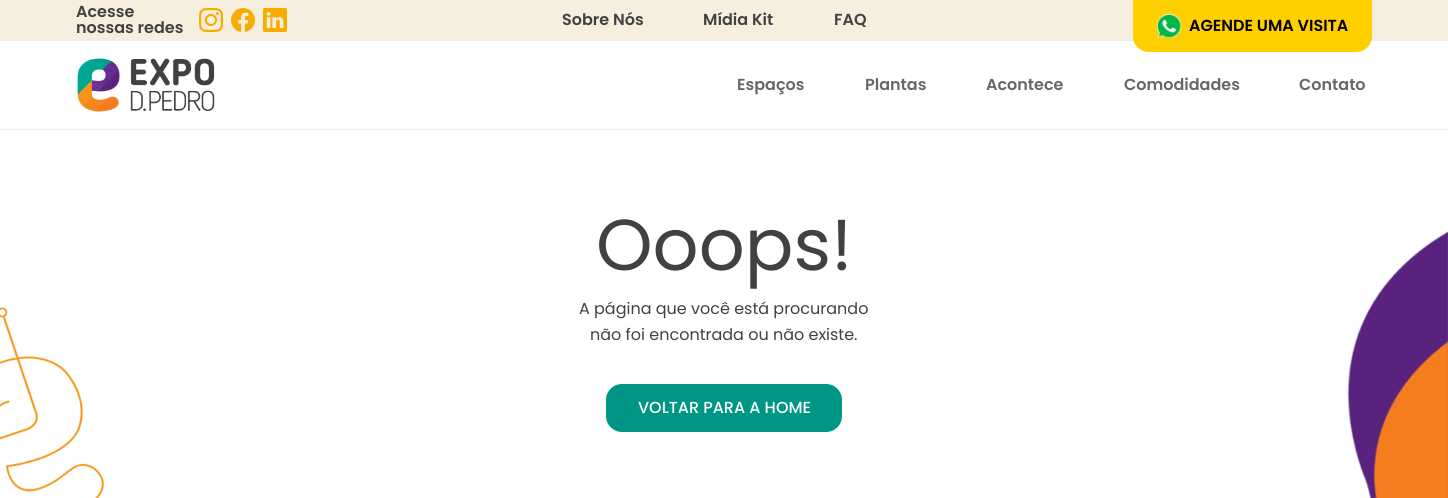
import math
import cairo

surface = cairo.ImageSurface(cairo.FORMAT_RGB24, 1448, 498)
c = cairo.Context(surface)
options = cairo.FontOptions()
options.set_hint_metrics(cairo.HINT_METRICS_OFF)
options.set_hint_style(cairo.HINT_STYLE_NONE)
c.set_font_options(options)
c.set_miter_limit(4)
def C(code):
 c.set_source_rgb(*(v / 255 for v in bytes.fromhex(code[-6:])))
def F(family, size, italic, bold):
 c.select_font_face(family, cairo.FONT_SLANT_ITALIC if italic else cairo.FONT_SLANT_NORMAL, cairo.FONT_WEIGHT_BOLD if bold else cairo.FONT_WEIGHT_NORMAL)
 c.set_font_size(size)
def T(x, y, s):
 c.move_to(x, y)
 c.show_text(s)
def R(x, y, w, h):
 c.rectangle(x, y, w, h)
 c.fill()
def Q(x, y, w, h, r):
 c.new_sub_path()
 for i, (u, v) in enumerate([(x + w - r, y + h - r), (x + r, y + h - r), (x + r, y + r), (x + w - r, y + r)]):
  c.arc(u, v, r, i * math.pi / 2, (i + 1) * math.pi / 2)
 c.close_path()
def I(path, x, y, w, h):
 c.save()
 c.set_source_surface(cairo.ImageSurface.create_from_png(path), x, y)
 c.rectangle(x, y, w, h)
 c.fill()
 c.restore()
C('ffffff')
c.paint()
I('1.png',0,231,1448,267)
C('f6efdf')
R(0,0,1448,40)
F('Poppins SemiBold',16,0,0)
C('414143')
T(76,17,'Acesse')
T(76,33,'nossas redes')
I('2.png',199,8,24,24)
I('3.png',231,8,24,24)
I('4.png',263,8,24,24)
T(562,25,'Sobre Nós')
T(703,25,'Mídia Kit')
T(834,25,'FAQ')
C('eeeeee')
R(0,40,1448,1)
C('ffcf00')
c.new_path()
c.move_to(1133,-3)
c.line_to(1372,-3)
c.line_to(1372,36)
c.curve_to(1372,45,1365,52,1356,52)
c.line_to(1149,52)
c.curve_to(1140,52,1133,45,1133,36)
c.close_path()
c.fill()
I('5.png',1157,14,24,24)
C('000000')
T(1189,31,'AGENDE UMA VISITA')
C('eeeeee')
R(0,129,1448,1)
I('6.png',77,58,138,54)
C('676769')
T(737,90,'Espaços')
T(865,90,'Plantas')
T(986,90,'Acontece')
T(1124,90,'Comodidades')
T(1299,90,'Contato')
F('Poppins',72,0,0)
C('414143')
T(596,270,'Ooops!')
F('Poppins',16,0,0)
T(579,314,'A página que você está procurando')
T(590,340,'não foi encontrada ou não existe.')
C('009685')
Q(606,384,236,48,16)
c.fill()
F('Poppins Medium',16,0,0)
C('ffffff')
T(638,413,'VOLTAR PARA A HOME')
surface.write_to_png('o.png')
